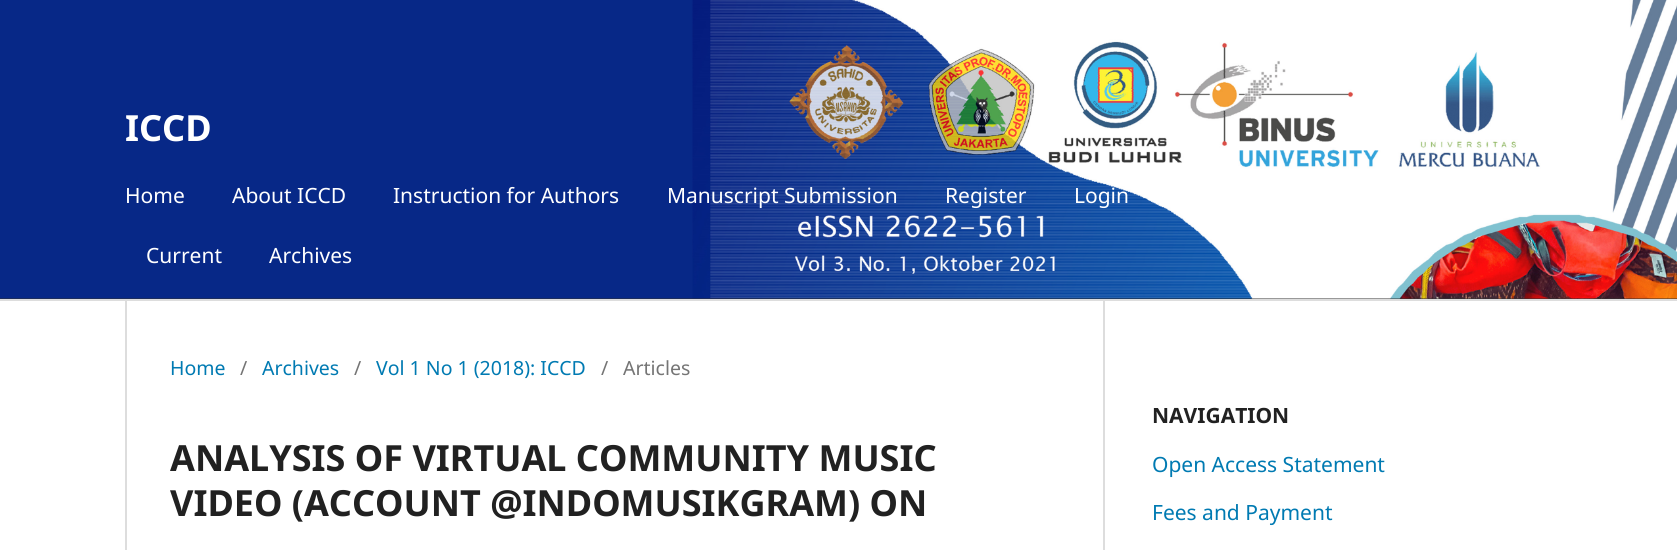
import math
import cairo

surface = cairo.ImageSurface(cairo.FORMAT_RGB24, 1677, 550)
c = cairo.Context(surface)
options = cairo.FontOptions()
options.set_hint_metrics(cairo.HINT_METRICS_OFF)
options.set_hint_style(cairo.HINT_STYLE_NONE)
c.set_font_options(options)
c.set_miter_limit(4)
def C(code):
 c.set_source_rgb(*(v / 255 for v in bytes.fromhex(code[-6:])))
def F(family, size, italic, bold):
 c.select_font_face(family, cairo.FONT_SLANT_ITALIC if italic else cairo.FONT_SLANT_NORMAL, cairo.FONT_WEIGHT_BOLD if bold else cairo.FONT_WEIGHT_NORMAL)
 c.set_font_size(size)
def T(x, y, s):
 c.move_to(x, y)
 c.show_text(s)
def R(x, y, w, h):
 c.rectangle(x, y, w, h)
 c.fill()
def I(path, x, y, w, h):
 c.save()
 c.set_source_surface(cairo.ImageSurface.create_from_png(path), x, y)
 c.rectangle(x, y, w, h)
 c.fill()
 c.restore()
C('ffffff')
c.paint()
C('333333')
R(0,298,1677,1)
I('1.png',0,0,1677,299)
C('dddddd')
R(0,299,1677,2)
F('Noto Sans',36,0,1)
C('ffffff')
T(125,141,'ICCD')
F('Noto Sans',21,0,0)
T(125,203,'Home')
T(232,203,'About ICCD')
T(393,203,'Instruction for Authors')
T(667,203,'Manuscript Submission')
T(945,203,'Register')
T(1074,203,'Login')
T(146,263,'Current')
T(269,263,'Archives')
C('dddddd')
R(125,300,2,250)
F('Noto Sans',19.5,0,0)
C('007ab2')
T(170,375,'Home')
C('757575')
T(240,375,'/')
C('007ab2')
T(262,375,'Archives')
C('757575')
T(354,375,'/')
C('007ab2')
T(376,375,'Vol 1 No 1 (2018): ICCD')
C('757575')
T(601,375,'/')
T(623,375,'Articles')
F('Noto Sans',36,0,1)
C('212121')
T(170,471,'ANALYSIS OF VIRTUAL COMMUNITY MUSIC')
T(170,516,'VIDEO (ACCOUNT @INDOMUSIKGRAM) ON')
C('dddddd')
R(1103,300,2,250)
F('Noto Sans',21,0,1)
C('212121')
T(1152,423,'NAVIGATION')
F('Noto Sans',21,0,0)
C('007ab2')
T(1152,472,'Open Access Statement')
T(1152,520,'Fees and Payment')
surface.write_to_png('o.png')
